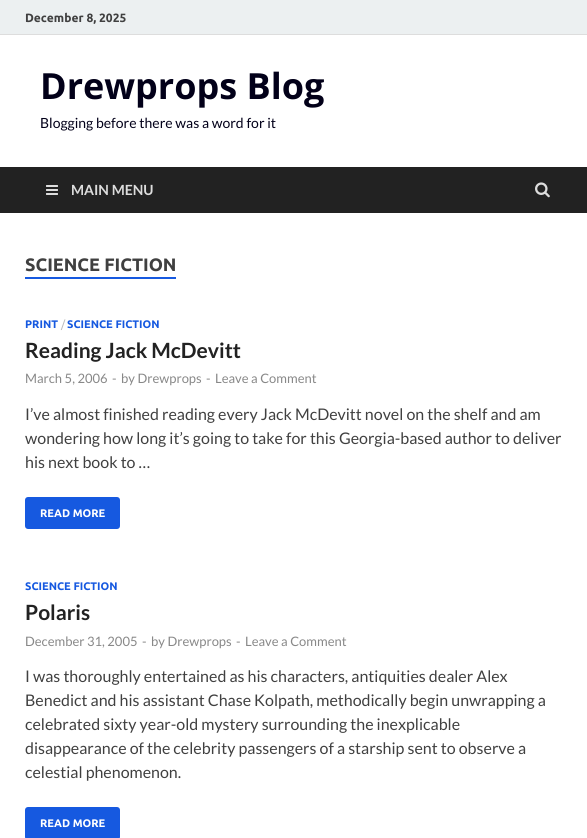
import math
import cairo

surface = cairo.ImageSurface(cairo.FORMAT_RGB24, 587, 838)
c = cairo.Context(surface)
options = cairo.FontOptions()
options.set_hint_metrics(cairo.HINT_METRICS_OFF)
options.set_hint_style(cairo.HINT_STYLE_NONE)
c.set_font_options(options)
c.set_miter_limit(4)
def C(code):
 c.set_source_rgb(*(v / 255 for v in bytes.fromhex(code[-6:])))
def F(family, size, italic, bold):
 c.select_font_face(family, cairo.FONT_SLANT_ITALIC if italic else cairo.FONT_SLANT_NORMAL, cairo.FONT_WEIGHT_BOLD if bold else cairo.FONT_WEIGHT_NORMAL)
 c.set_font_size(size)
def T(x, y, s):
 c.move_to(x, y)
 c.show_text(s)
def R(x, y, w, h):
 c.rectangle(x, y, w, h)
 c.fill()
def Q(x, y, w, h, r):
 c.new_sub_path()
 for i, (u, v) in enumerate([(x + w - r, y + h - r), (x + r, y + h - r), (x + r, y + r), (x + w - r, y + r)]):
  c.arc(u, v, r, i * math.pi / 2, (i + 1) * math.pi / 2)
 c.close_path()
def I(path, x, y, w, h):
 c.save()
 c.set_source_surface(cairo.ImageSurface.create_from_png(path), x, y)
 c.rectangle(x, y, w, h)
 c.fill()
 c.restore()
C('ffffff')
c.paint()
C('ecf0f1')
R(0,0,587,34)
C('dddddd')
R(0,34,587,1)
F('Ubuntu',12,0,1)
C('404040')
T(25,22,'December 8, 2025')
F('Open Sans',36,0,1)
C('020019')
T(40,99,'Drewprops Blog')
F('Lato',14,0,0)
T(40,128,'Blogging before there was a word for it')
C('222222')
R(0,167,587,46)
I('1.png',46,185,12,10)
F('Lato',14,0,1)
C('dddddd')
T(71,195,'MAIN MENU')
I('2.png',535,182,15,16)
F('Ubuntu',18,0,1)
C('404040')
T(25,271,'SCIENCE FICTION')
C('1659e0')
R(25,277,151,2)
F('Ubuntu',11,0,1)
T(25,328,'PRINT')
F('Ubuntu',11,0,0)
C('bbbbbb')
T(61,328,'/')
F('Ubuntu',11,0,1)
C('1659e0')
T(67,328,'SCIENCE FICTION')
F('Lato',21,0,1)
C('222222')
T(25,358,'Reading Jack McDevitt')
F('Lato',13,0,0)
C('888888')
T(25,383,'March 5, 2006')
T(112,383,'-')
T(121,383,'by Drewprops')
T(206,383,'-')
T(215,383,'Leave a Comment')
F('Lato',16,0,0)
C('404040')
T(25,420,'I’ve almost finished reading every Jack McDevitt novel on the shelf and am')
T(25,444,'wondering how long it’s going to take for this Georgia-based author to deliver')
T(25,468,'his next book to …')
C('1659e0')
Q(25,497,95,32,3)
c.fill()
F('Ubuntu',11,0,1)
C('ffffff')
T(40,517,'READ MORE')
C('1659e0')
T(25,590,'SCIENCE FICTION')
F('Lato',21,0,1)
C('222222')
T(25,620,'Polaris')
F('Lato',13,0,0)
C('888888')
T(25,646,'December 31, 2005')
T(142,646,'-')
T(151,646,'by Drewprops')
T(236,646,'-')
T(245,646,'Leave a Comment')
F('Lato',16,0,0)
C('404040')
T(25,682,'I was thoroughly entertained as his characters, antiquities dealer Alex')
T(25,706,'Benedict and his assistant Chase Kolpath, methodically begin unwrapping a')
T(25,730,'celebrated sixty year-old mystery surrounding the inexplicable')
T(25,754,'disappearance of the celebrity passengers of a starship sent to observe a')
T(25,778,'celestial phenomenon.')
C('1659e0')
Q(25,807,95,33,3)
c.fill()
F('Ubuntu',11,0,1)
C('ffffff')
T(40,827,'READ MORE')
surface.write_to_png('o.png')
